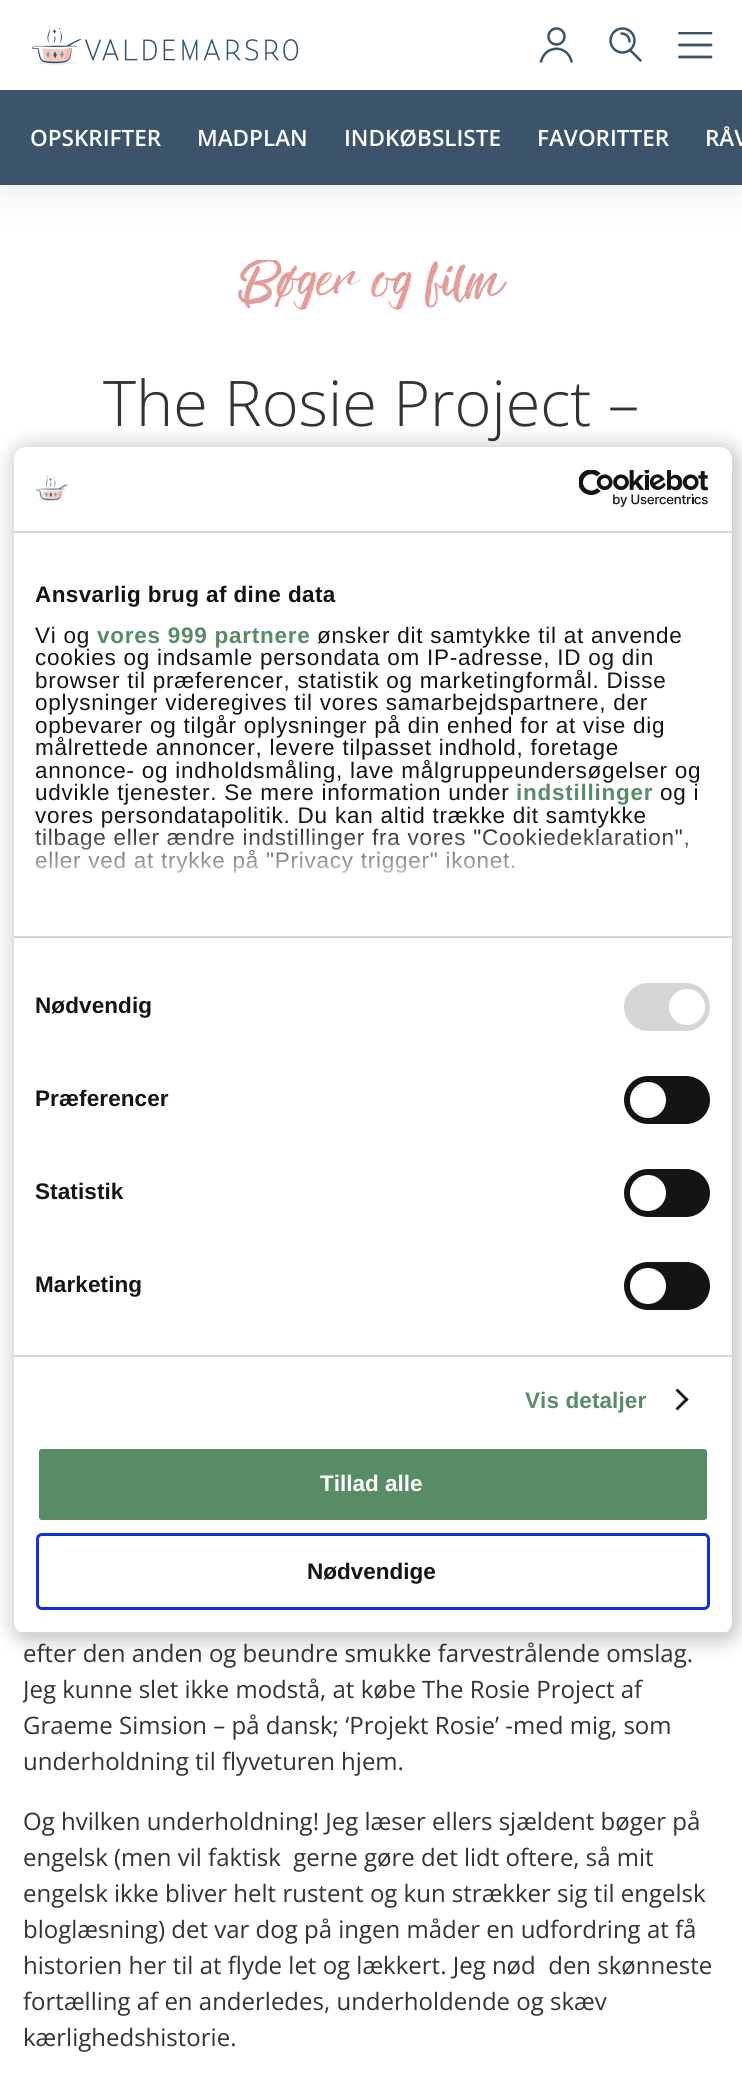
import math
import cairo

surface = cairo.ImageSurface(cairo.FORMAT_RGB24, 742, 2079)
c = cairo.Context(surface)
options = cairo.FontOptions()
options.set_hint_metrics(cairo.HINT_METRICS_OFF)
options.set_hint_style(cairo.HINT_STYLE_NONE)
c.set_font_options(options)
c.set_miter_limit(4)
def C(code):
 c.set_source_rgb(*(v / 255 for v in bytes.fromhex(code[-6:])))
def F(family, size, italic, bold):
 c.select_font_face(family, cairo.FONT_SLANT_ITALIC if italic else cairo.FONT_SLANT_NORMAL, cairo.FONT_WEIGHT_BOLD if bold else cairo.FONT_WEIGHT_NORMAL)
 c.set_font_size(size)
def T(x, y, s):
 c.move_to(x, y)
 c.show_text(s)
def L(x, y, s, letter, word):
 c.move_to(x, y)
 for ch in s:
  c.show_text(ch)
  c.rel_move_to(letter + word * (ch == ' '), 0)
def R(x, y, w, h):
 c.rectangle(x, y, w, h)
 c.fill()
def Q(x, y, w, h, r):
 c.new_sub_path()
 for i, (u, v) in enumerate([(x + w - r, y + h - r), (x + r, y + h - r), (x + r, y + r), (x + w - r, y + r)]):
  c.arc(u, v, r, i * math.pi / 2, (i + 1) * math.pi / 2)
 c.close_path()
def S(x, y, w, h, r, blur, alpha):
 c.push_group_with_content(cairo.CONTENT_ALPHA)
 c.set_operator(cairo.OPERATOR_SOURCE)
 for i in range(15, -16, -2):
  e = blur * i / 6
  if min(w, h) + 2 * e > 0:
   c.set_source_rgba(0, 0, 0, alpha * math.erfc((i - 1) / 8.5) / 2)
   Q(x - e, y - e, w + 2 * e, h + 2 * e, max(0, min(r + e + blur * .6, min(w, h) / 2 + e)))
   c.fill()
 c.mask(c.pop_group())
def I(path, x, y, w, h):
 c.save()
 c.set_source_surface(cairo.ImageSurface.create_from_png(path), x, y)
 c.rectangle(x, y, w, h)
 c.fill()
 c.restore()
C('ffffff')
c.paint()
C('000000')
S(0,0,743,185,0,26,.1)
C('ffffff')
R(0,0,742,90)
I('1.png',31,26,268,39)
c.arc(556.5,36.5,8,0,2 * math.pi)
C('3c546b')
c.set_line_width(2.5)
c.stroke()
c.new_path()
c.move_to(571.5,61.5)
c.curve_to(567.5,44.5,545.5,44.5,541,61.5)
c.set_line_cap(cairo.LINE_CAP_ROUND)
c.stroke()
c.arc(622.5,40.5,12,0,2 * math.pi)
c.set_line_cap(cairo.LINE_CAP_BUTT)
c.stroke()
c.new_path()
c.move_to(621.5,33.5)
c.curve_to(626,33.5,629.5,37,629.5,41.5)
c.move_to(630,50)
c.line_to(640.5,60.5)
c.set_line_cap(cairo.LINE_CAP_ROUND)
c.stroke()
c.save()
c.rectangle(678,32,35,27)
c.clip()
c.new_path()
c.move_to(679.5,33)
c.line_to(711,33)
c.set_line_width(2.8)
c.stroke()
c.restore()
c.new_path()
c.move_to(679.5,45)
c.line_to(711,45)
c.set_line_width(2.8)
c.stroke()
c.new_path()
c.move_to(679.5,57)
c.line_to(711,57)
c.stroke()
R(0,90,742,95)
F('Open Sans SemiBold',22.5,0,0)
C('ffffff')
T(30,146,'OPSKRIFTER')
T(197,146,'MADPLAN')
T(344,146,'INDKØBSLISTE')
T(537,146,'FAVORITTER')
T(705,146,'RÅV')
c.save()
c.rectangle(23,260,697,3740)
c.clip()
F('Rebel',45,0,0)
C('e39c9a')
T(238,303,'Bøger og film')
c.restore()
F('Open Sans Light',63,0,0)
C('333333')
T(103,426,'The Rosie Project –')
F('Open Sans',24,0,0)
T(23,1662,'efter den anden og beundre smukke farvestrålende omslag.')
c.save()
c.rectangle(23,260,697,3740)
c.clip()
T(23,1698,'Jeg kunne slet ikke modstå, at købe The Rosie Project af')
c.restore()
T(23,1734,'Graeme Simsion – på dansk; ‘Projekt Rosie’ -med mig, som')
T(23,1770,'underholdning til flyveturen hjem.')
T(23,1830,'Og hvilken underholdning! Jeg læser ellers sjældent bøger på')
T(23,1866,'engelsk (men vil faktisk  gerne gøre det lidt oftere, så mit')
T(23,1902,'engelsk ikke bliver helt rustent og kun strækker sig til engelsk')
T(23,1938,'bloglæsning) det var dog på ingen måder en udfordring at få')
T(23,1974,'historien her til at flyde let og lækkert. Jeg nød  den skønneste')
T(23,2010,'fortælling af en anderledes, underholdende og skæv')
T(23,2046,'kærlighedshistorie.')
C('000000')
S(14,447,724,1193,15,10.5,.25)
C('ffffff')
Q(14,447,718,1187,12)
c.fill()
C('d6d6d6')
R(14,531,718,2)
I('2.png',35,475,33,26)
I('3.png',579,470,130,37)
R(14,936,718,2)
F('Liberation Sans',22.5,0,1)
C('141414')
L(35,602,'Ansvarlig brug af dine data',.4,0)
F('Liberation Sans',22.5,0,0)
L(35,643,'Vi og',.75,0)
F('Liberation Sans',22.5,0,1)
C('578c67')
L(97,643,'vores 999 partnere',.75,0)
F('Liberation Sans',22.5,0,0)
C('141414')
L(317,643,'ønsker dit samtykke til at anvende',.75,0)
L(35,665,'cookies og indsamle persondata om IP-adresse, ID og din',.75,0)
L(35,688,'browser til præferencer, statistik og marketingformål. Disse',.75,0)
L(35,710,'oplysninger videregives til vores samarbejdspartnere, der',.75,0)
L(35,733,'opbevarer og tilgår oplysninger på din enhed for at vise dig',.75,0)
L(35,755,'målrettede annoncer, levere tilpasset indhold, foretage',.75,0)
L(35,778,'annonce- og indholdsmåling, lave målgruppeundersøgelser og',.75,0)
L(35,800,'udvikle tjenester. Se mere information under',.75,0)
F('Liberation Sans',22.5,0,1)
C('578c67')
L(516,800,'indstillinger',.75,0)
F('Liberation Sans',22.5,0,0)
C('141414')
L(660,800,'og i',.75,0)
L(35,823,'vores persondatapolitik. Du kan altid trække dit samtykke',.75,0)
L(35,845,'tilbage eller ændre indstillinger fra vores "Cookiedeklaration",',.75,0)
L(35,868,'eller ved at trykke på "Privacy trigger" ikonet.',.75,0)
gradient = cairo.LinearGradient(362,935,362,823)
gradient.add_color_stop_rgba(0,1,1,1,1)
gradient.add_color_stop_rgba(.5,1,1,1,.8)
gradient.add_color_stop_rgba(1,1,1,1,0)
c.set_source(gradient)
R(34,825,654,48)
C('d6d6d6')
R(14,1355,718,2)
F('Liberation Sans',22.5,0,1)
C('141414')
L(35,1013,'Nødvendig',.1,0)
C('d6d6d6')
Q(624,983,86,48,24)
c.fill()
C('ffffff')
c.arc(687,1007,18,0,2 * math.pi)
c.fill()
C('141414')
L(35,1106,'Præferencer',.1,0)
Q(624,1076,86,48,24)
c.fill()
C('ffffff')
c.arc(648,1100,18,0,2 * math.pi)
c.fill()
C('141414')
L(35,1199,'Statistik',.1,0)
Q(624,1169,86,48,24)
c.fill()
C('ffffff')
c.arc(648,1193,18,0,2 * math.pi)
c.fill()
C('141414')
L(35,1292,'Marketing',.1,0)
Q(624,1262,86,48,24)
c.fill()
C('ffffff')
c.arc(648,1286,18,0,2 * math.pi)
c.fill()
C('578c67')
L(525,1408,'Vis detaljer',.1,0)
C('141414')
c.new_path()
c.move_to(677.5,1388.5)
c.line_to(688.5,1399.5)
c.line_to(686.5,1401.5)
c.line_to(675.5,1390.5)
c.close_path()
c.fill()
c.new_path()
c.move_to(686.5,1397.5)
c.line_to(688.5,1399.5)
c.line_to(677.5,1410.5)
c.line_to(675.5,1408.5)
c.close_path()
c.fill()
c.save()
Q(14,447,718,1187,12)
c.clip()
C('d6d6d6')
R(14,1632,718,2)
c.restore()
C('578c67')
Q(37.5,1447.5,671,74,4.5)
c.fill_preserve()
C('ffffff')
c.set_line_width(3)
c.set_line_cap(cairo.LINE_CAP_BUTT)
c.stroke()
T(320,1491,'Tillad alle')
Q(37.5,1534.5,671,74,4.5)
C('1032cf')
c.stroke()
C('141414')
T(307,1579,'Nødvendige')
surface.write_to_png('o.png')
